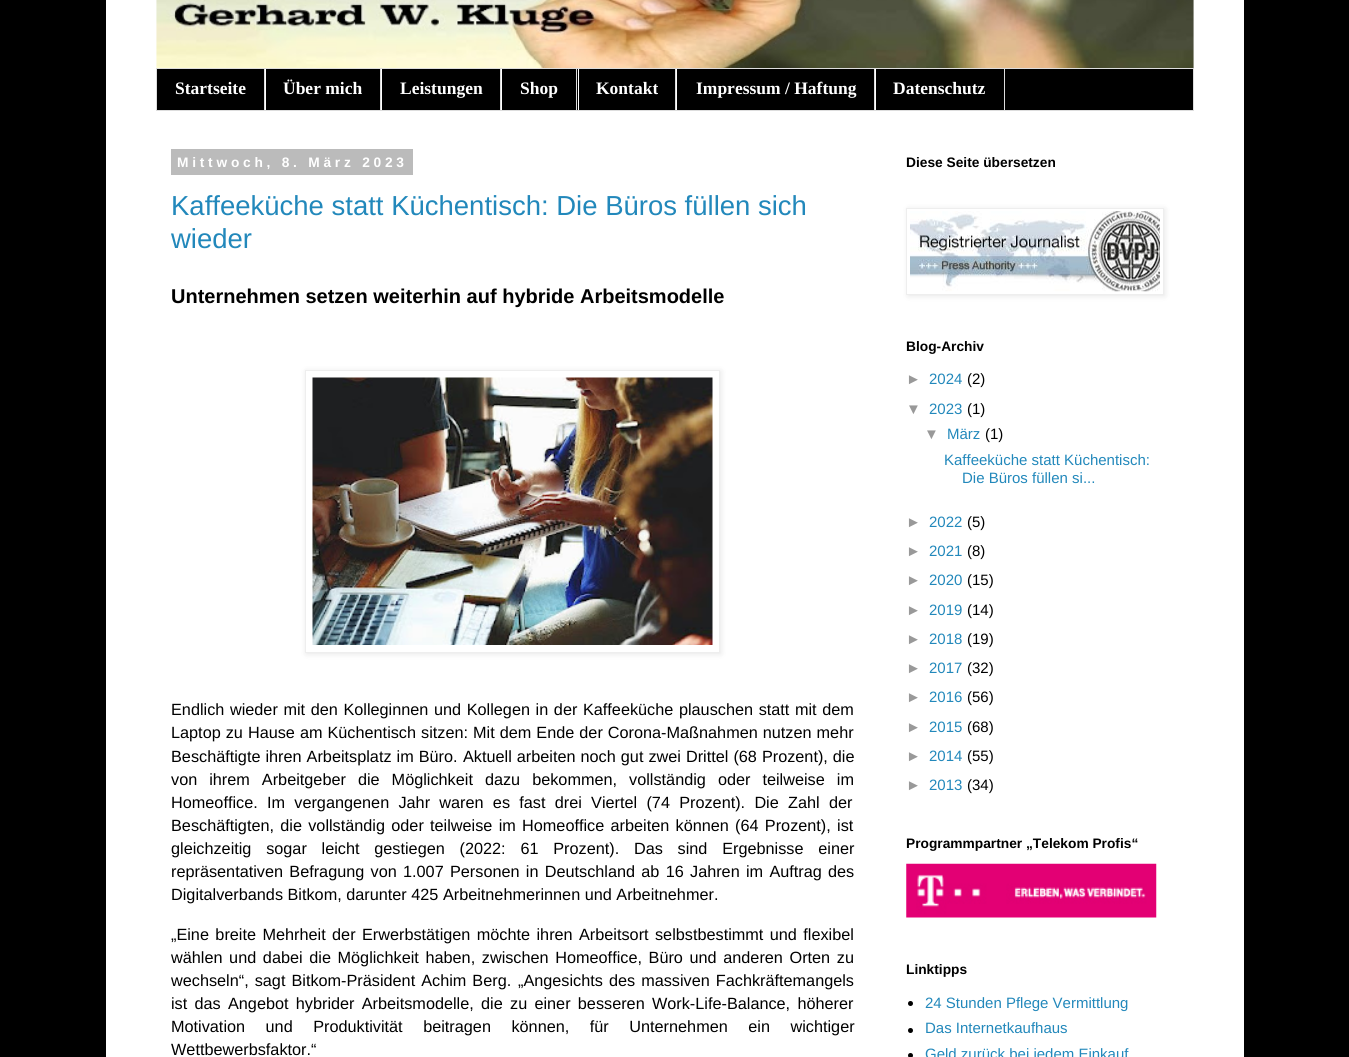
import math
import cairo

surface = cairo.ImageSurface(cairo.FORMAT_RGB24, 1349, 1057)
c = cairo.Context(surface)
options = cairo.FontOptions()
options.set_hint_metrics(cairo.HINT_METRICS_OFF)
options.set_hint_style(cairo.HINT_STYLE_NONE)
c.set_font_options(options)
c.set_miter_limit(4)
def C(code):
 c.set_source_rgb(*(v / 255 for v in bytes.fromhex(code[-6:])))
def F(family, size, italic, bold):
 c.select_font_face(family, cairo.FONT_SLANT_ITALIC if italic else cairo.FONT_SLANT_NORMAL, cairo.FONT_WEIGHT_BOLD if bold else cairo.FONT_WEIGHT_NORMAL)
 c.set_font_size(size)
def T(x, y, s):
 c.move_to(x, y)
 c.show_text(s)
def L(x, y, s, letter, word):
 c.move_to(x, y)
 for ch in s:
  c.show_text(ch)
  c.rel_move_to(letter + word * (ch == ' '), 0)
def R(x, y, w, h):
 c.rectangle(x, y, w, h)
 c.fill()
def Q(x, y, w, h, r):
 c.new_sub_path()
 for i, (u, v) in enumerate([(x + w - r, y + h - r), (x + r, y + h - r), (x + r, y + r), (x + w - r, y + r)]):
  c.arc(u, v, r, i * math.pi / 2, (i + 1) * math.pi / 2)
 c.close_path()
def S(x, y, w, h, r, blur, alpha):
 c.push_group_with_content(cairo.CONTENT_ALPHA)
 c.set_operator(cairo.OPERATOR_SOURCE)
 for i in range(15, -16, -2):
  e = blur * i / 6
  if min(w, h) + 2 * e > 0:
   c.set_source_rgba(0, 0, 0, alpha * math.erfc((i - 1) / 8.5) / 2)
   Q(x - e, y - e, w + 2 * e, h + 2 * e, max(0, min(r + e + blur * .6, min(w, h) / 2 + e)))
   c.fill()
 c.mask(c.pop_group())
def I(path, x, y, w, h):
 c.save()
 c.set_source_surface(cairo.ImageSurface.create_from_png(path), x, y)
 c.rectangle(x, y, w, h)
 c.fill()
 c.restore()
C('000000')
c.paint()
C('ffffff')
R(106,0,1138,1057)
I('1.png',156,0,1038,68)
C('000000')
c.rectangle(156.5,68.5,1037,42)
c.fill_preserve()
C('dddddd')
c.set_line_width(1)
c.stroke()
R(264,69,1,41)
F('Liberation Serif',17.5,0,1)
C('ffffff')
T(175,94,'Startseite')
C('dddddd')
R(380,69,1,41)
C('ffffff')
R(265,69,1,41)
T(283,94,'Über mich')
C('dddddd')
R(500,69,1,41)
C('ffffff')
R(381,69,1,41)
T(400,94,'Leistungen')
C('dddddd')
R(576,69,1,41)
C('ffffff')
R(501,69,1,41)
T(520,94,'Shop')
C('dddddd')
R(675,69,1,41)
C('ffffff')
R(578,69,1,41)
T(596,94,'Kontakt')
C('dddddd')
R(874,69,1,41)
C('ffffff')
R(676,69,1,41)
T(696,94,'Impressum / Haftung')
C('dddddd')
R(1004,69,1,41)
C('ffffff')
R(875,69,1,41)
T(893,94,'Datenschutz')
C('bbbbbb')
R(171,149,242,26)
F('Liberation Sans',13.75,0,1)
C('ffffff')
L(177,167,'Mittwoch, 8. März 2023',3.75,0)
F('Liberation Sans',27.5,0,0)
C('2288bb')
T(171,215,'Kaffeeküche statt Küchentisch: Die Büros füllen sich')
T(171,248,'wieder')
F('Liberation Sans',20,0,1)
C('000000')
T(171,303,'Unternehmen setzen weiterhin auf hybride Arbeitsmodelle')
C('000000')
S(306,371,415,283,0,3,.1)
C('ffffff')
c.rectangle(305.5,370.5,414,282)
c.fill_preserve()
C('eeeeee')
c.stroke()
I('2.png',312,377,401,268)
F('Liberation Sans',16.25,0,0)
C('000000')
L(171,715,'Endlich wieder mit den Kolleginnen und Kollegen in der Kaffeeküche plauschen statt mit dem',0,1.1)
L(171,738,'Laptop zu Hause am Küchentisch sitzen: Mit dem Ende der Corona-Maßnahmen nutzen mehr',0,.5)
L(171,762,'Beschäftigte ihren Arbeitsplatz im Büro.',0,.5)
L(463,762,'Aktuell arbeiten noch gut zwei Drittel (68 Prozent), die',0,.5)
L(171,785,'von ihrem Arbeitgeber die Möglichkeit dazu bekommen, vollständig oder teilweise im',0,7.5)
L(171,808,'Homeoffice. Im vergangenen Jahr waren es fast drei Viertel (74 Prozent). Die Zahl der',0,4.75)
L(171,831,'Beschäftigten, die vollständig oder teilweise im Homeoffice arbeiten können (64 Prozent), ist',0,1.75)
L(171,854,'gleichzeitig sogar leicht gestiegen (2022: 61 Prozent). Das sind Ergebnisse einer',0,10.25)
L(171,877,'repräsentativen Befragung von 1.007 Personen in Deutschland ab 16 Jahren im Auftrag des',0,1.75)
T(171,900,'Digitalverbands Bitkom, darunter 425 Arbeitnehmerinnen und Arbeitnehmer.')
L(171,940,'„Eine breite Mehrheit der Erwerbstätigen möchte ihren Arbeitsort selbstbestimmt und flexibel',0,1.9)
L(171,963,'wählen und dabei die Möglichkeit haben, zwischen Homeoffice, Büro und anderen Orten zu',0,2.1)
L(171,986,'wechseln“, sagt Bitkom-Präsident Achim Berg.',0,1.5)
L(518,986,'„Angesichts des massiven Fachkräftemangels',0,1.5)
L(171,1009,'ist das Angebot hybrider Arbeitsmodelle, die zu einer besseren Work-Life-Balance, höherer',0,2.75)
L(171,1032,'Motivation und Produktivität beitragen können, für Unternehmen ein wichtiger',0,16)
T(171,1055,'Wettbewerbsfaktor.“')
F('Liberation Sans',13.75,0,1)
T(906,167,'Diese Seite übersetzen')
C('000000')
S(908,209,257,87,0,3,.1)
C('ffffff')
c.rectangle(906.5,208.5,257,86)
c.fill_preserve()
C('eeeeee')
c.stroke()
I('3.png',910,211,250,81)
C('000000')
T(906,351,'Blog-Archiv')
F('Liberation Sans',15,0,0)
C('999999')
T(906,384,'►')
C('2288bb')
T(929,384,'2024')
C('000000')
T(967,384,'(2)')
C('999999')
T(906,414,'▼')
C('2288bb')
T(929,414,'2023')
C('000000')
T(967,414,'(1)')
C('999999')
T(924,439,'▼')
C('2288bb')
T(947,439,'März')
C('000000')
T(985,439,'(1)')
C('2288bb')
T(944,465,'Kaffeeküche statt Küchentisch:')
T(962,483,'Die Büros füllen si...')
C('999999')
T(906,527,'►')
C('2288bb')
T(929,527,'2022')
C('000000')
T(967,527,'(5)')
C('999999')
T(906,556,'►')
C('2288bb')
T(929,556,'2021')
C('000000')
T(967,556,'(8)')
C('999999')
T(906,585,'►')
C('2288bb')
T(929,585,'2020')
C('000000')
T(967,585,'(15)')
C('999999')
T(906,615,'►')
C('2288bb')
T(929,615,'2019')
C('000000')
T(967,615,'(14)')
C('999999')
T(906,644,'►')
C('2288bb')
T(929,644,'2018')
C('000000')
T(967,644,'(19)')
C('999999')
T(906,673,'►')
C('2288bb')
T(929,673,'2017')
C('000000')
T(967,673,'(32)')
C('999999')
T(906,702,'►')
C('2288bb')
T(929,702,'2016')
C('000000')
T(967,702,'(56)')
C('999999')
T(906,732,'►')
C('2288bb')
T(929,732,'2015')
C('000000')
T(967,732,'(68)')
C('999999')
T(906,761,'►')
C('2288bb')
T(929,761,'2014')
C('000000')
T(967,761,'(55)')
C('999999')
T(906,790,'►')
C('2288bb')
T(929,790,'2013')
C('000000')
T(967,790,'(34)')
F('Liberation Sans',13.75,0,1)
T(906,848,'Programmpartner „Telekom Profis“')
I('4.png',906,863,251,55)
T(906,974,'Linktipps')
c.new_path()
c.arc(910.5,1003.5,2.5,0,2 * math.pi)
c.fill()
F('Liberation Sans',15,0,0)
C('2288bb')
T(925,1008,'24 Stunden Pflege Vermittlung')
C('000000')
c.new_path()
c.arc(910.5,1030.5,2.5,0,2 * math.pi)
c.fill()
C('2288bb')
T(925,1033,'Das Internetkaufhaus')
C('000000')
c.new_path()
c.arc(910.5,1055.5,2.5,0,2 * math.pi)
c.fill()
C('2288bb')
T(925,1059,'Geld zurück bei jedem Einkauf')
surface.write_to_png('o.png')
